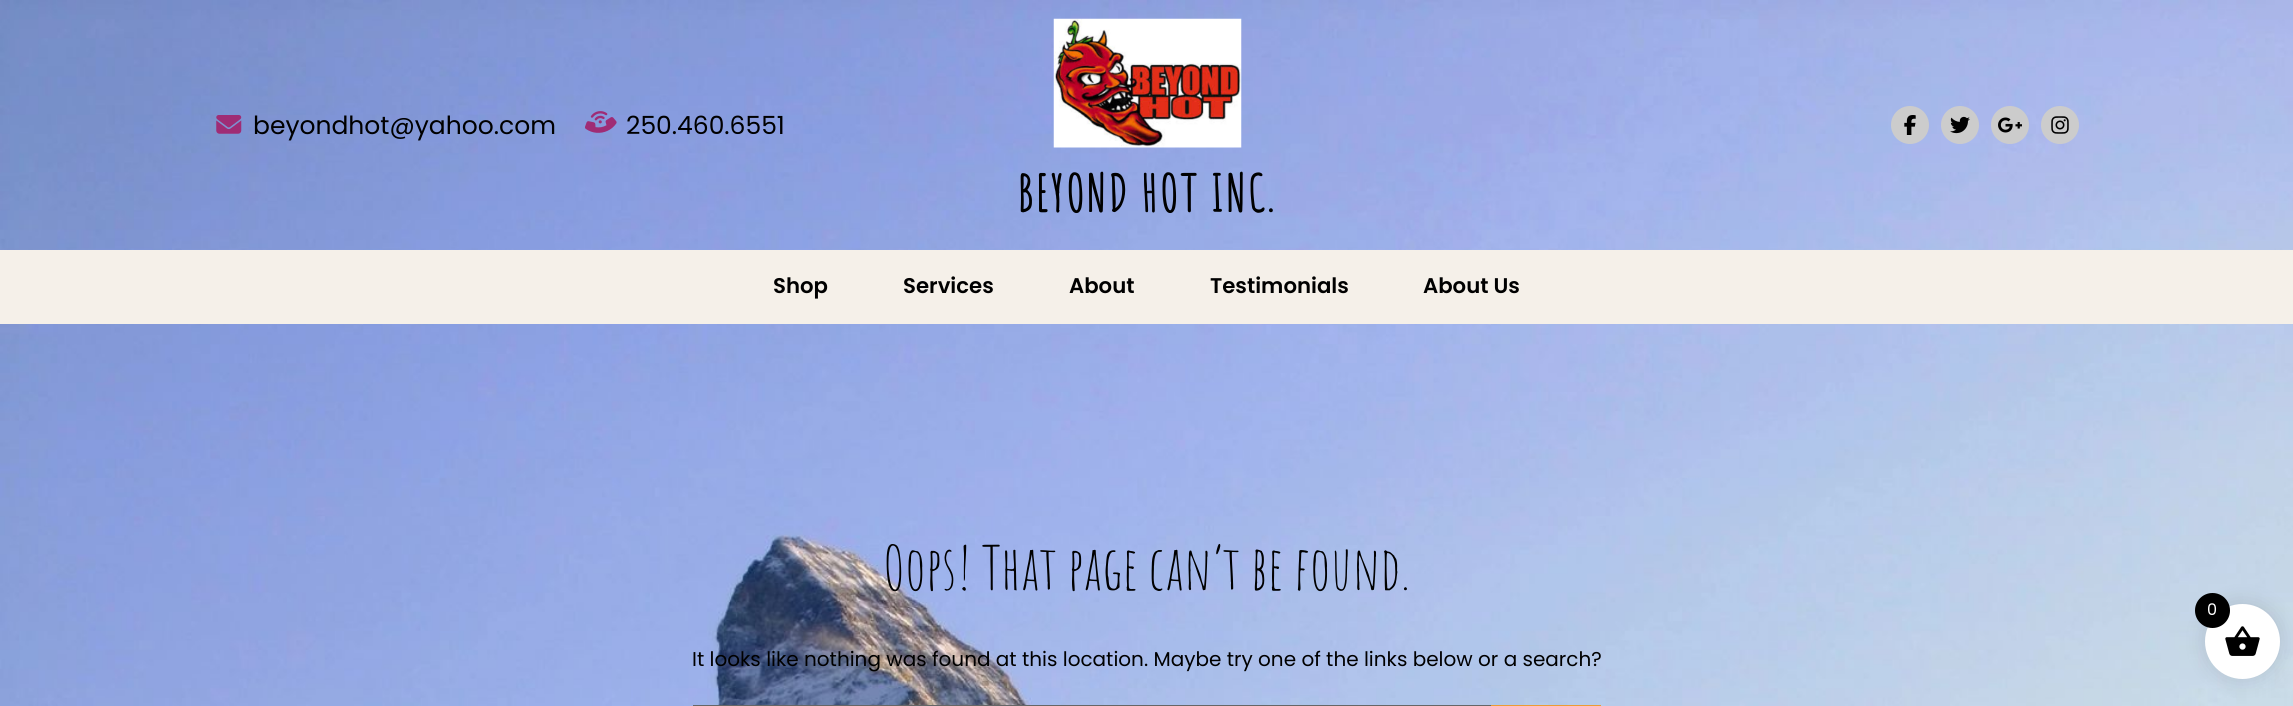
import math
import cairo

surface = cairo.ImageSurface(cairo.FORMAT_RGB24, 2293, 706)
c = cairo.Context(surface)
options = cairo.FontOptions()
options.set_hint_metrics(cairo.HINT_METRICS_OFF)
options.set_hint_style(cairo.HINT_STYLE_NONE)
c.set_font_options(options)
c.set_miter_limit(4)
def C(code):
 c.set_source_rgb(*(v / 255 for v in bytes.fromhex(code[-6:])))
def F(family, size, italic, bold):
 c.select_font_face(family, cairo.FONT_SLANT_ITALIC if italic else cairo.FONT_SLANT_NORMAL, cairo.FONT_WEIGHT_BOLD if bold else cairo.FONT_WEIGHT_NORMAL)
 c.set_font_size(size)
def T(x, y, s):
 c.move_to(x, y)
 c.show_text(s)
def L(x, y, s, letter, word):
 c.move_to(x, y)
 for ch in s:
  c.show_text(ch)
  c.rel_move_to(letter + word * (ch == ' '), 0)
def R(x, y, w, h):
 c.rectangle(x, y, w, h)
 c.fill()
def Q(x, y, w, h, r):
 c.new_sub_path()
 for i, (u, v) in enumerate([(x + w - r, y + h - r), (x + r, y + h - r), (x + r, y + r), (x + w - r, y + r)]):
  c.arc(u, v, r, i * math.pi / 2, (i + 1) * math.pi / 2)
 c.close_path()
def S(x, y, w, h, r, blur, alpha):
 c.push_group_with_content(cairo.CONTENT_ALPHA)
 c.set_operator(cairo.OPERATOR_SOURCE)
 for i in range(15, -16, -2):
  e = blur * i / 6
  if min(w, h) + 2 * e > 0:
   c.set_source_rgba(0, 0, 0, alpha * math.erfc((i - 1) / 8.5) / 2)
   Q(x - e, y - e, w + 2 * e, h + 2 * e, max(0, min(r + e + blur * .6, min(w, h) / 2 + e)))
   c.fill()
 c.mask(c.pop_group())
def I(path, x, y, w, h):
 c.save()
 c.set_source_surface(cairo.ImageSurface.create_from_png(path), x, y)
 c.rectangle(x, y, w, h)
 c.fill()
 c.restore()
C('ffffff')
c.paint()
I('1.png',0,0,2293,706)
I('2.png',216,115,26,19)
F('Poppins',25,0,0)
C('000000')
T(253,134,'beyondhot@yahoo.com')
I('3.png',585,111,32,22)
T(626,134,'250.460.6551')
C('cccccc')
c.new_path()
c.arc(1910,125,19,0,2 * math.pi)
c.fill()
I('4.png',1904,115,12,20)
c.arc(1960,125,19,0,2 * math.pi)
c.fill()
I('5.png',1950,116,20,18)
c.arc(2010,125,19,0,2 * math.pi)
c.fill()
I('6.png',1998,117,24,16)
c.arc(2060,125,19,0,2 * math.pi)
c.fill()
I('7.png',2051,116,18,18)
I('8.png',1053,18,189,130)
F('Amatic SC',50,0,1)
C('000000')
L(1017,212,'BEYOND HOT INC.',2.5,0)
C('f5f0e9')
R(0,250,2293,74)
F('Poppins SemiBold',21.25,0,0)
C('000000')
T(773,293,'Shop')
T(903,293,'Services')
T(1069,293,'About')
T(1210,293,'Testimonials')
T(1423,293,'About Us')
F('Amatic SC',60,0,0)
T(883,590,'Oops! That page can’t be found.')
F('Poppins',20,0,0)
T(692,666,'It looks like nothing was found at this location. Maybe try one of the links below or a search?')
c.rectangle(693.5,705.5,797,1)
C('666666')
c.set_line_width(1)
c.stroke()
C('ec9c34')
R(1491,705,110,1)
C('000000')
S(2203,601,80,80,40,9.5,.1)
C('ffffff')
c.arc(2242.5,641.5,37.5,0,2 * math.pi)
c.fill()
I('9.png',2225,626,35,30)
C('000000')
c.arc(2212.5,610.5,17.5,0,2 * math.pi)
c.fill()
F('Poppins',16,0,0)
C('ffffff')
T(2207,615,'0')
surface.write_to_png('o.png')
